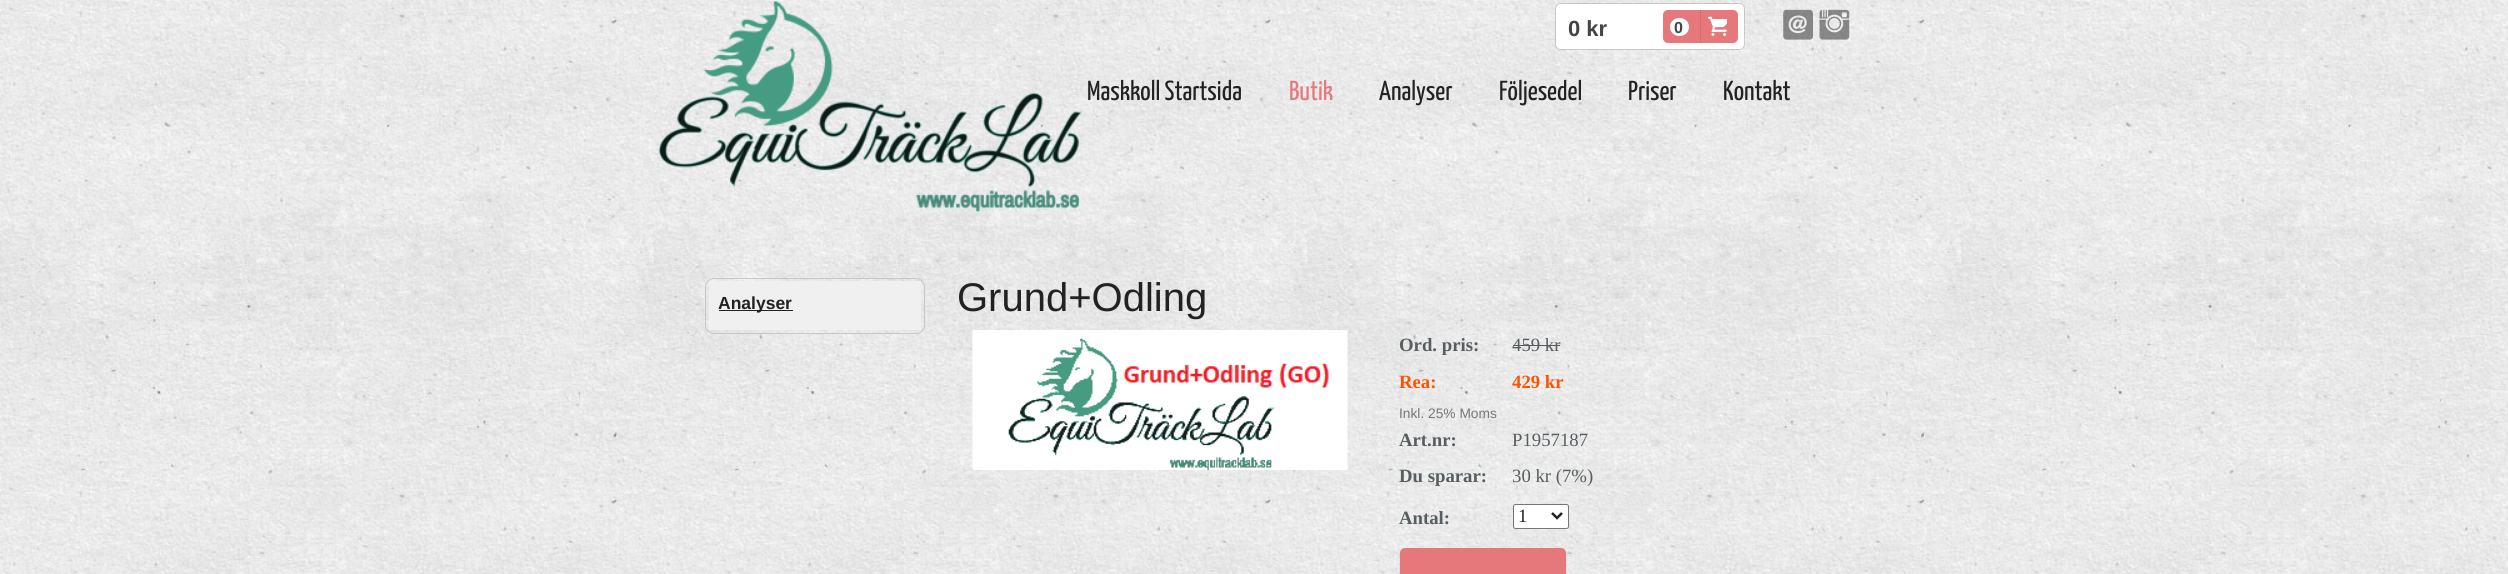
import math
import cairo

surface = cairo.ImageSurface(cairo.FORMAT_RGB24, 2508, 574)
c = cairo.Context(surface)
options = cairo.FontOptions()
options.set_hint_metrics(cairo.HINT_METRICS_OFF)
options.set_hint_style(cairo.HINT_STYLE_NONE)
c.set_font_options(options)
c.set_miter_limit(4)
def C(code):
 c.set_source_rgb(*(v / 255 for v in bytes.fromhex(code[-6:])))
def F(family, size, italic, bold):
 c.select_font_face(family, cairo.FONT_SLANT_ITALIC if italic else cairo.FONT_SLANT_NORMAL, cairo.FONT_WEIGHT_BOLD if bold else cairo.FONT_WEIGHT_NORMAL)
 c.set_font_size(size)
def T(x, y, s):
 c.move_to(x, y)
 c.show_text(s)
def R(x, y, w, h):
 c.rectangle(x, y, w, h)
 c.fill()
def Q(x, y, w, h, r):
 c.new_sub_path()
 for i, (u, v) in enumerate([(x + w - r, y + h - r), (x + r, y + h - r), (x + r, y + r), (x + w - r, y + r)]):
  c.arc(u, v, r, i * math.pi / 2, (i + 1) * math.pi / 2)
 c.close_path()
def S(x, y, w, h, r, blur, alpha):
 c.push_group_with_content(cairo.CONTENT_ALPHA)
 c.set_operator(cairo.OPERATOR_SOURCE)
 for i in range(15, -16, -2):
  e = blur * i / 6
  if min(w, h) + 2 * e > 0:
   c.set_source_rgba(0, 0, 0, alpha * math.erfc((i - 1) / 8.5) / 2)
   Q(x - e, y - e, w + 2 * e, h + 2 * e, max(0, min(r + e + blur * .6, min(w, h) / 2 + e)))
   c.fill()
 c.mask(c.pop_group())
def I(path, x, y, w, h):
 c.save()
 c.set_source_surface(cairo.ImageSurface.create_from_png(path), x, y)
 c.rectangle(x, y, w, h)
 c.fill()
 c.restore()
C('ffffff')
c.paint()
I('1.png',0,0,2508,574)
I('2.png',658,1,425,211)
Q(1555.5,3.5,189,46,5.5)
c.set_source_rgba(0,0,0,0.15)
c.set_line_width(1)
c.stroke()
C('ffffff')
Q(1556,4,188,45,5)
c.fill()
F('Liberation Sans',22,0,1)
C('444444')
T(1568,36,'0 kr')
C('e6787c')
Q(1663,10,75,33,5)
c.fill()
C('cf6c70')
R(1700,10,1,33)
C('ffffff')
Q(1670,18,19,18,9)
c.fill()
F('Liberation Sans',16,0,1)
C('444444')
T(1674,33,'0')
I('3.png',1708,16,19,20)
I('4.png',1783,9,30,31)
I('5.png',1819,9,31,31)
F('Yanone Kaffeesatz ExtraLight',27.5,0,0)
C('222222')
T(1087,100,'Maskkoll Startsida')
C('e6787c')
T(1289,100,'Butik')
C('222222')
T(1379,100,'Analyser')
T(1499,100,'Följesedel')
T(1628,100,'Priser')
T(1723,100,'Kontakt')
Q(705.5,278.5,219,55,8.5)
C('c7c7c7')
c.stroke()
C('f0f0f0')
R(709,281,212,49)
C('222222')
R(719,310,74,1)
F('Liberation Sans',17.5,0,1)
T(718,309,'Analyser')
F('Liberation Sans',40,0,0)
T(957,311,'Grund+Odling')
I('6.png',972,330,376,140)
F('Liberation Serif',18.75,0,1)
C('575e61')
T(1399,351,'Ord. pris:')
F('Liberation Serif',18.75,0,0)
T(1512,351,'459 kr')
R(1513,345,47,1)
F('Liberation Serif',18.75,0,1)
C('ff5300')
T(1399,388,'Rea:')
T(1512,388,'429 kr')
F('Liberation Sans',13.75,0,0)
C('777777')
T(1399,418,'Inkl. 25% Moms')
F('Liberation Serif',18.75,0,1)
C('575e61')
T(1399,446,'Art.nr:')
F('Liberation Serif',18.75,0,0)
T(1512,446,'P1957187')
F('Liberation Serif',18.75,0,1)
T(1399,482,'Du sparar:')
F('Liberation Serif',18.75,0,0)
T(1512,482,'30 kr (7%)')
F('Liberation Serif',18.75,0,1)
T(1399,524,'Antal:')
C('ffffff')
Q(1513.5,504.5,55,24,2)
c.fill_preserve()
C('767676')
c.stroke()
c.new_path()
c.move_to(1552,513)
c.line_to(1557,518)
c.line_to(1562,513)
C('222222')
c.set_line_width(2.5)
c.stroke()
F('Liberation Serif',18.75,0,0)
T(1518,522,'1')
C('000000')
S(1401,550,164,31,4,1,.6)
C('e6787c')
Q(1400,548,166,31,5)
c.fill()
surface.write_to_png('o.png')
